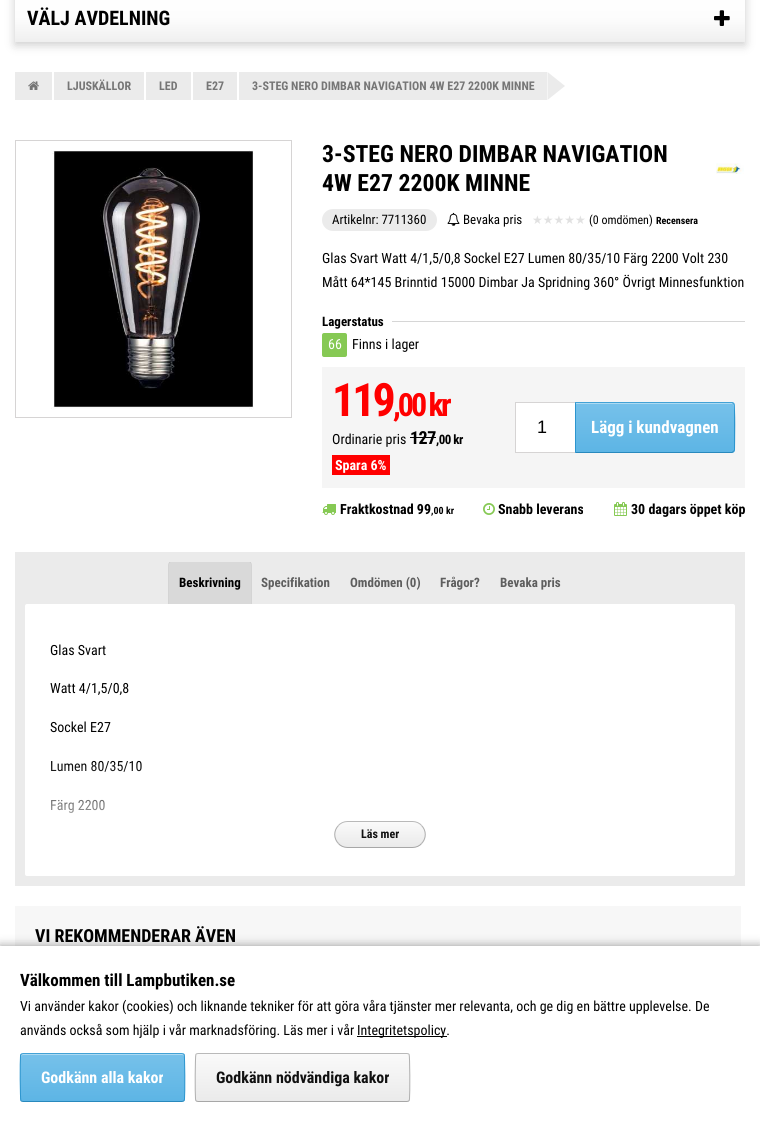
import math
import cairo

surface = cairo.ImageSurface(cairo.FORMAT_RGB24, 760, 1122)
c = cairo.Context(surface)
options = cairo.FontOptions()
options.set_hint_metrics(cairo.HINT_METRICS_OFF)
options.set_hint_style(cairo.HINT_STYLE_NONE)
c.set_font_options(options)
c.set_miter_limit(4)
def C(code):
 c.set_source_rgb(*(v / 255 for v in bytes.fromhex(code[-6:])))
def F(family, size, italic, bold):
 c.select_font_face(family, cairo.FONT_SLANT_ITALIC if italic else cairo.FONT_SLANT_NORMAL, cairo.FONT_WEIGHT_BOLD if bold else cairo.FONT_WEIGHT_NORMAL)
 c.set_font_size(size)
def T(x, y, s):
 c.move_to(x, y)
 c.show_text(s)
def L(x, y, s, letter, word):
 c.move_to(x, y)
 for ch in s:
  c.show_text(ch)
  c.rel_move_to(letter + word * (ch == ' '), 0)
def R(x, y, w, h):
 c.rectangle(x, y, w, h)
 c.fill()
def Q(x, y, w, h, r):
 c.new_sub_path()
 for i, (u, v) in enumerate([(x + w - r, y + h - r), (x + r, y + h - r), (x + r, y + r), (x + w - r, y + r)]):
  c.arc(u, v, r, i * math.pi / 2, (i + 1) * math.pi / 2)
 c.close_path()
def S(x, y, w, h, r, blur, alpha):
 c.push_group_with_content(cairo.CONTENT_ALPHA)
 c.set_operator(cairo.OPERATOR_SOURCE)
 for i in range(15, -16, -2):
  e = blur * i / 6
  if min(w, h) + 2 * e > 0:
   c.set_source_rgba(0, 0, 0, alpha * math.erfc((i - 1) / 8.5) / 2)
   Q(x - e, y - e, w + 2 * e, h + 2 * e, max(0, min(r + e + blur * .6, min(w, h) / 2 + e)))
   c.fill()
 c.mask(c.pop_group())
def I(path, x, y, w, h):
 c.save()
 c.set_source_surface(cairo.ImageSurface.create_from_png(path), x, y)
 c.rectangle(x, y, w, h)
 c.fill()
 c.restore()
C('ffffff')
c.paint()
C('000000')
S(15,-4,730,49,0,5,.2)
gradient = cairo.LinearGradient(380,-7,380,42)
gradient.add_color_stop_rgba(0,1,1,1,1)
gradient.add_color_stop_rgba(.5,0.992,0.992,0.992,1)
gradient.add_color_stop_rgba(1,0.937,0.937,0.937,1)
c.set_source(gradient)
R(15,0,730,42)
F('Roboto Condensed',20,0,1)
C('000000')
T(27,25,'VÄLJ AVDELNING')
I('1.png',714,10,16,16)
C('ebebeb')
R(15,72,37,28)
I('2.png',28,81,11,9)
R(54,72,90,28)
F('Roboto Condensed',12,0,1)
C('767676')
T(67,90,'LJUSKÄLLOR')
C('ebebeb')
R(146,72,45,28)
C('767676')
T(159,90,'LED')
C('ebebeb')
R(193,72,44,28)
C('767676')
T(206,90,'E27')
C('ebebeb')
R(239,72,308,28)
C('767676')
T(252,90,'3-STEG NERO DIMBAR NAVIGATION 4W E27 2200K MINNE')
C('ebebeb')
c.new_path()
c.move_to(547.5,72)
c.line_to(565,86)
c.line_to(547.5,100)
c.close_path()
c.fill()
c.rectangle(15.5,140.5,276,277)
C('d6d4d4')
c.set_line_width(1)
c.stroke()
I('3.png',51,150,203,260)
F('Roboto Condensed',23.75,0,1)
C('000000')
T(322,162,'3-STEG NERO DIMBAR NAVIGATION')
T(322,191,'4W E27 2200K MINNE')
I('4.png',716,163,28,11)
C('ebebeb')
Q(322,209,115,22,11)
c.fill()
F('Roboto Condensed',13,0,0)
C('000000')
T(332,224,'Artikelnr: 7711360')
I('5.png',447,212,13,14)
T(463,224,'Bevaka pris')
F('DejaVu Sans',12,0,0)
C('e1e1e1')
T(532,224,'★★★★★')
F('Roboto Condensed',12,0,0)
C('000000')
T(589,224,'(0 omdömen)')
F('Roboto Condensed',10,0,1)
T(656,224,'Recensera')
F('Roboto Condensed',14,0,0)
T(322,263,'Glas Svart Watt 4/1,5/0,8 Sockel E27 Lumen 80/35/10 Färg 2200 Volt 230')
T(322,287,'Mått 64*145 Brinntid 15000 Dimbar Ja Spridning 360° Övrigt Minnesfunktion')
F('Roboto Condensed',13,0,1)
T(322,326,'Lagerstatus')
C('d6d6d6')
R(392,321,353,1)
C('86c954')
Q(322,333,25,24,2)
c.fill()
F('Roboto Condensed',14,0,0)
C('ffffff')
T(328,349,'66')
C('000000')
T(352,349,'Finns i lager')
C('f5f5f5')
R(322,367,423,121)
F('Roboto Condensed',46,0,1)
C('ff0000')
L(332,416,'119',-3,0)
F('Roboto Condensed',32,0,1)
L(393,416,',00 kr',-3,0)
F('Roboto Condensed',14,0,0)
C('000000')
T(332,444,'Ordinarie pris')
F('Roboto Condensed',18,0,1)
L(410,444,'127',-.5,0)
R(410,437,26,1)
F('Roboto Condensed',13,0,1)
L(436,444,',00 kr',-.5,0)
C('ff0000')
R(332,455,58,20)
F('Roboto Condensed',14,0,1)
C('ffffff')
T(335,470,'Spara 6%')
R(516,403,59,49)
C('d6d4d4')
R(515,402,60,1)
R(515,452,60,1)
R(515,402,1,51)
F('Liberation Sans',18,0,0)
C('000000')
T(537,433,'1')
c.save()
c.new_path()
c.move_to(575,402)
c.line_to(732,402)
c.curve_to(733.5,402,735,403.5,735,405)
c.line_to(735,450)
c.curve_to(735,451.5,733.5,453,732,453)
c.line_to(575,453)
c.close_path()
c.clip()
gradient = cairo.LinearGradient(655,354,655,403)
gradient.add_color_stop_rgba(0,0.463,0.757,0.918,1)
gradient.add_color_stop_rgba(1,0.365,0.71,0.898,1)
c.set_source(gradient)
R(575,402,160,1)
gradient = cairo.LinearGradient(655,403,655,452)
gradient.add_color_stop_rgba(0,0.463,0.757,0.918,1)
gradient.add_color_stop_rgba(1,0.365,0.71,0.898,1)
c.set_source(gradient)
R(576,403,159,49)
gradient = cairo.LinearGradient(655,452,655,501)
gradient.add_color_stop_rgba(0,0.463,0.757,0.918,1)
gradient.add_color_stop_rgba(1,0.365,0.71,0.898,1)
c.set_source(gradient)
R(575,452,160,1)
c.restore()
C('addaf2')
c.new_path()
c.move_to(576,404)
c.line_to(732,404)
c.curve_to(733,404,734,405,734,406)
c.curve_to(734,405,734,403,732,403)
c.line_to(576,403)
c.close_path()
c.fill()
C('43a2d6')
c.new_path()
c.move_to(575,402)
c.line_to(576,403)
c.line_to(732,403)
c.line_to(733,404)
c.line_to(734,403)
c.line_to(732,402)
c.close_path()
c.fill()
C('2d95ce')
c.new_path()
c.move_to(735,450)
c.curve_to(735,444,736,405,734,403)
c.line_to(733,404)
c.line_to(734,405)
c.line_to(734,450)
c.line_to(733,451)
c.line_to(734,452)
c.close_path()
c.fill()
C('2989bd')
c.new_path()
c.move_to(732,453)
c.line_to(734,452)
c.line_to(733,451)
c.line_to(732,452)
c.line_to(576,452)
c.line_to(575,453)
c.close_path()
c.fill()
C('2d95ce')
c.new_path()
c.move_to(575,402)
c.line_to(575,453)
c.line_to(576,452)
c.line_to(576,403)
c.close_path()
c.fill()
F('Roboto Condensed',17,0,1)
C('ffffff')
T(591,433,'Lägg i kundvagnen')
I('6.png',322,504,14,11)
F('Roboto Condensed',14,0,1)
C('000000')
T(340,514,'Fraktkostnad 99')
F('Roboto Condensed',10,0,1)
T(431,514,',00 kr')
I('7.png',483,503,12,12)
F('Roboto Condensed',14,0,1)
T(498,514,'Snabb leverans')
I('8.png',614,502,13,14)
T(631,514,'30 dagars öppet köp')
C('ebebeb')
R(15,552,730,334)
c.save()
c.rectangle(25,552,710,52)
c.clip()
C('d4d4d4')
c.new_path()
c.move_to(171,562)
c.curve_to(169,562,168,563,168,565)
c.line_to(168,606)
c.line_to(252,606)
c.line_to(252,565)
c.curve_to(252,563,251,562,249,562)
c.curve_to(250,562,251,563,251,564)
c.line_to(251,604)
c.line_to(169,604)
c.line_to(169,564)
c.curve_to(169,563,170,562,171,562)
c.close_path()
c.fill()
c.restore()
c.set_source_rgba(0,0,0,0.08)
R(169,562,82,42)
F('Roboto Condensed',13,0,1)
C('000000')
T(179,587,'Beskrivning')
C('5e5e5e')
T(261,587,'Specifikation')
T(350,587,'Omdömen (0)')
T(440,587,'Frågor?')
T(500,587,'Bevaka pris')
C('ffffff')
Q(25,604,710,272,2)
c.fill()
F('Roboto Condensed',14,0,0)
C('000000')
T(50,655,'Glas Svart')
T(50,693,'Watt 4/1,5/0,8')
T(50,732,'Sockel E27')
T(50,771,'Lumen 80/35/10')
T(50,810,'Färg 2200')
gradient = cairo.LinearGradient(380,761,380,851)
gradient.add_color_stop_rgba(0,1,1,1,0)
gradient.add_color_stop_rgba(1,1,1,1,1)
c.set_source(gradient)
R(51,763,91,50)
c.save()
Q(334,821,92,27,13.5)
c.clip()
gradient = cairo.LinearGradient(380,822,380,847)
gradient.add_color_stop_rgba(0,0.98,0.98,0.98,1)
gradient.add_color_stop_rgba(1,0.918,0.918,0.918,1)
c.set_source(gradient)
R(334,822,92,25)
c.restore()
c.new_path()
c.move_to(338.5,825.5)
c.curve_to(340.5,823,344,821.5,347.5,821.5)
c.line_to(412.5,821.5)
c.curve_to(416,821.5,419.5,823,421.5,825.5)
C('b9b9b9')
c.stroke()
c.new_path()
c.move_to(421.5,825.5)
c.curve_to(426.5,830.5,426.5,838.5,421.5,843.5)
C('afafaf')
c.stroke()
c.new_path()
c.move_to(421.5,843.5)
c.curve_to(419.5,846,416,847.5,412.5,847.5)
c.line_to(347.5,847.5)
c.curve_to(344,847.5,340.5,846,338.5,843.5)
C('a7a7a7')
c.stroke()
c.new_path()
c.move_to(338.5,843.5)
c.curve_to(333.5,838.5,333.5,830.5,338.5,825.5)
C('afafaf')
c.stroke()
F('Roboto Condensed',12,0,1)
C('111111')
T(361,838,'Läs mer')
C('f7f7f7')
R(15,906,726,40)
F('Roboto Condensed',18,0,1)
C('000000')
T(35,942,'VI REKOMMENDERAR ÄVEN')
C('000000')
S(0,946,760,176,0,5,.4)
C('ffffff')
R(0,946,760,176)
F('Roboto Condensed',17,0,1)
C('000000')
T(20,986,'Välkommen till Lampbutiken.se')
F('Roboto Condensed',14,0,0)
T(20,1011,'Vi använder kakor (cookies) och liknande tekniker för att göra våra tjänster mer relevanta, och ge dig en bättre upplevelse. De')
T(20,1035,'används också som hjälp i vår marknadsföring. Läs mer i vår')
R(357,1036,90,1)
T(357,1035,'Integritetspolicy.')
c.save()
Q(20,1053,165,49,3)
c.clip()
gradient = cairo.LinearGradient(103,1054,103,1101)
gradient.add_color_stop_rgba(0,0.463,0.757,0.918,1)
gradient.add_color_stop_rgba(1,0.365,0.71,0.898,1)
c.set_source(gradient)
R(20,1054,165,47)
c.restore()
C('addaf2')
c.new_path()
c.move_to(23,1055)
c.line_to(182,1055)
c.curve_to(183,1055,184,1056,184,1057)
c.curve_to(184,1056,184,1054,182,1054)
c.line_to(23,1054)
c.curve_to(21,1054,21,1056,21,1057)
c.curve_to(21,1056,22,1055,23,1055)
c.close_path()
c.fill()
c.new_path()
c.move_to(21,1054)
c.line_to(23,1053.5)
c.line_to(182,1053.5)
c.line_to(184,1054)
C('43a2d6')
c.stroke()
c.new_path()
c.move_to(184,1054)
c.curve_to(185,1055.5,185,1095,184.5,1099)
c.line_to(184,1101)
C('2d95ce')
c.stroke()
c.new_path()
c.move_to(184,1101)
c.line_to(182,1101.5)
c.line_to(23,1101.5)
c.line_to(21,1101)
C('2989bd')
c.stroke()
c.new_path()
c.move_to(21,1101)
c.curve_to(20,1099.5,20,1060,20.5,1056)
c.line_to(21,1054)
C('2d95ce')
c.stroke()
F('Roboto Condensed',16,0,1)
C('ffffff')
T(41,1083,'Godkänn alla kakor')
c.save()
Q(195,1053,215,49,3)
c.clip()
gradient = cairo.LinearGradient(303,1054,303,1101)
gradient.add_color_stop_rgba(0,0.98,0.98,0.98,1)
gradient.add_color_stop_rgba(1,0.918,0.918,0.918,1)
c.set_source(gradient)
R(195,1054,215,47)
c.restore()
c.new_path()
c.move_to(196,1054)
c.line_to(198,1053.5)
c.line_to(407,1053.5)
c.line_to(409,1054)
C('b9b9b9')
c.stroke()
c.new_path()
c.move_to(409,1054)
c.curve_to(410,1055.5,410,1095,409.5,1099)
c.line_to(409,1101)
C('afafaf')
c.stroke()
c.new_path()
c.move_to(409,1101)
c.line_to(407,1101.5)
c.line_to(198,1101.5)
c.line_to(196,1101)
C('a7a7a7')
c.stroke()
c.new_path()
c.move_to(196,1101)
c.line_to(195.5,1099)
c.curve_to(195,1095,195,1055.5,196,1054)
C('afafaf')
c.stroke()
C('111111')
T(216,1083,'Godkänn nödvändiga kakor')
surface.write_to_png('o.png')
